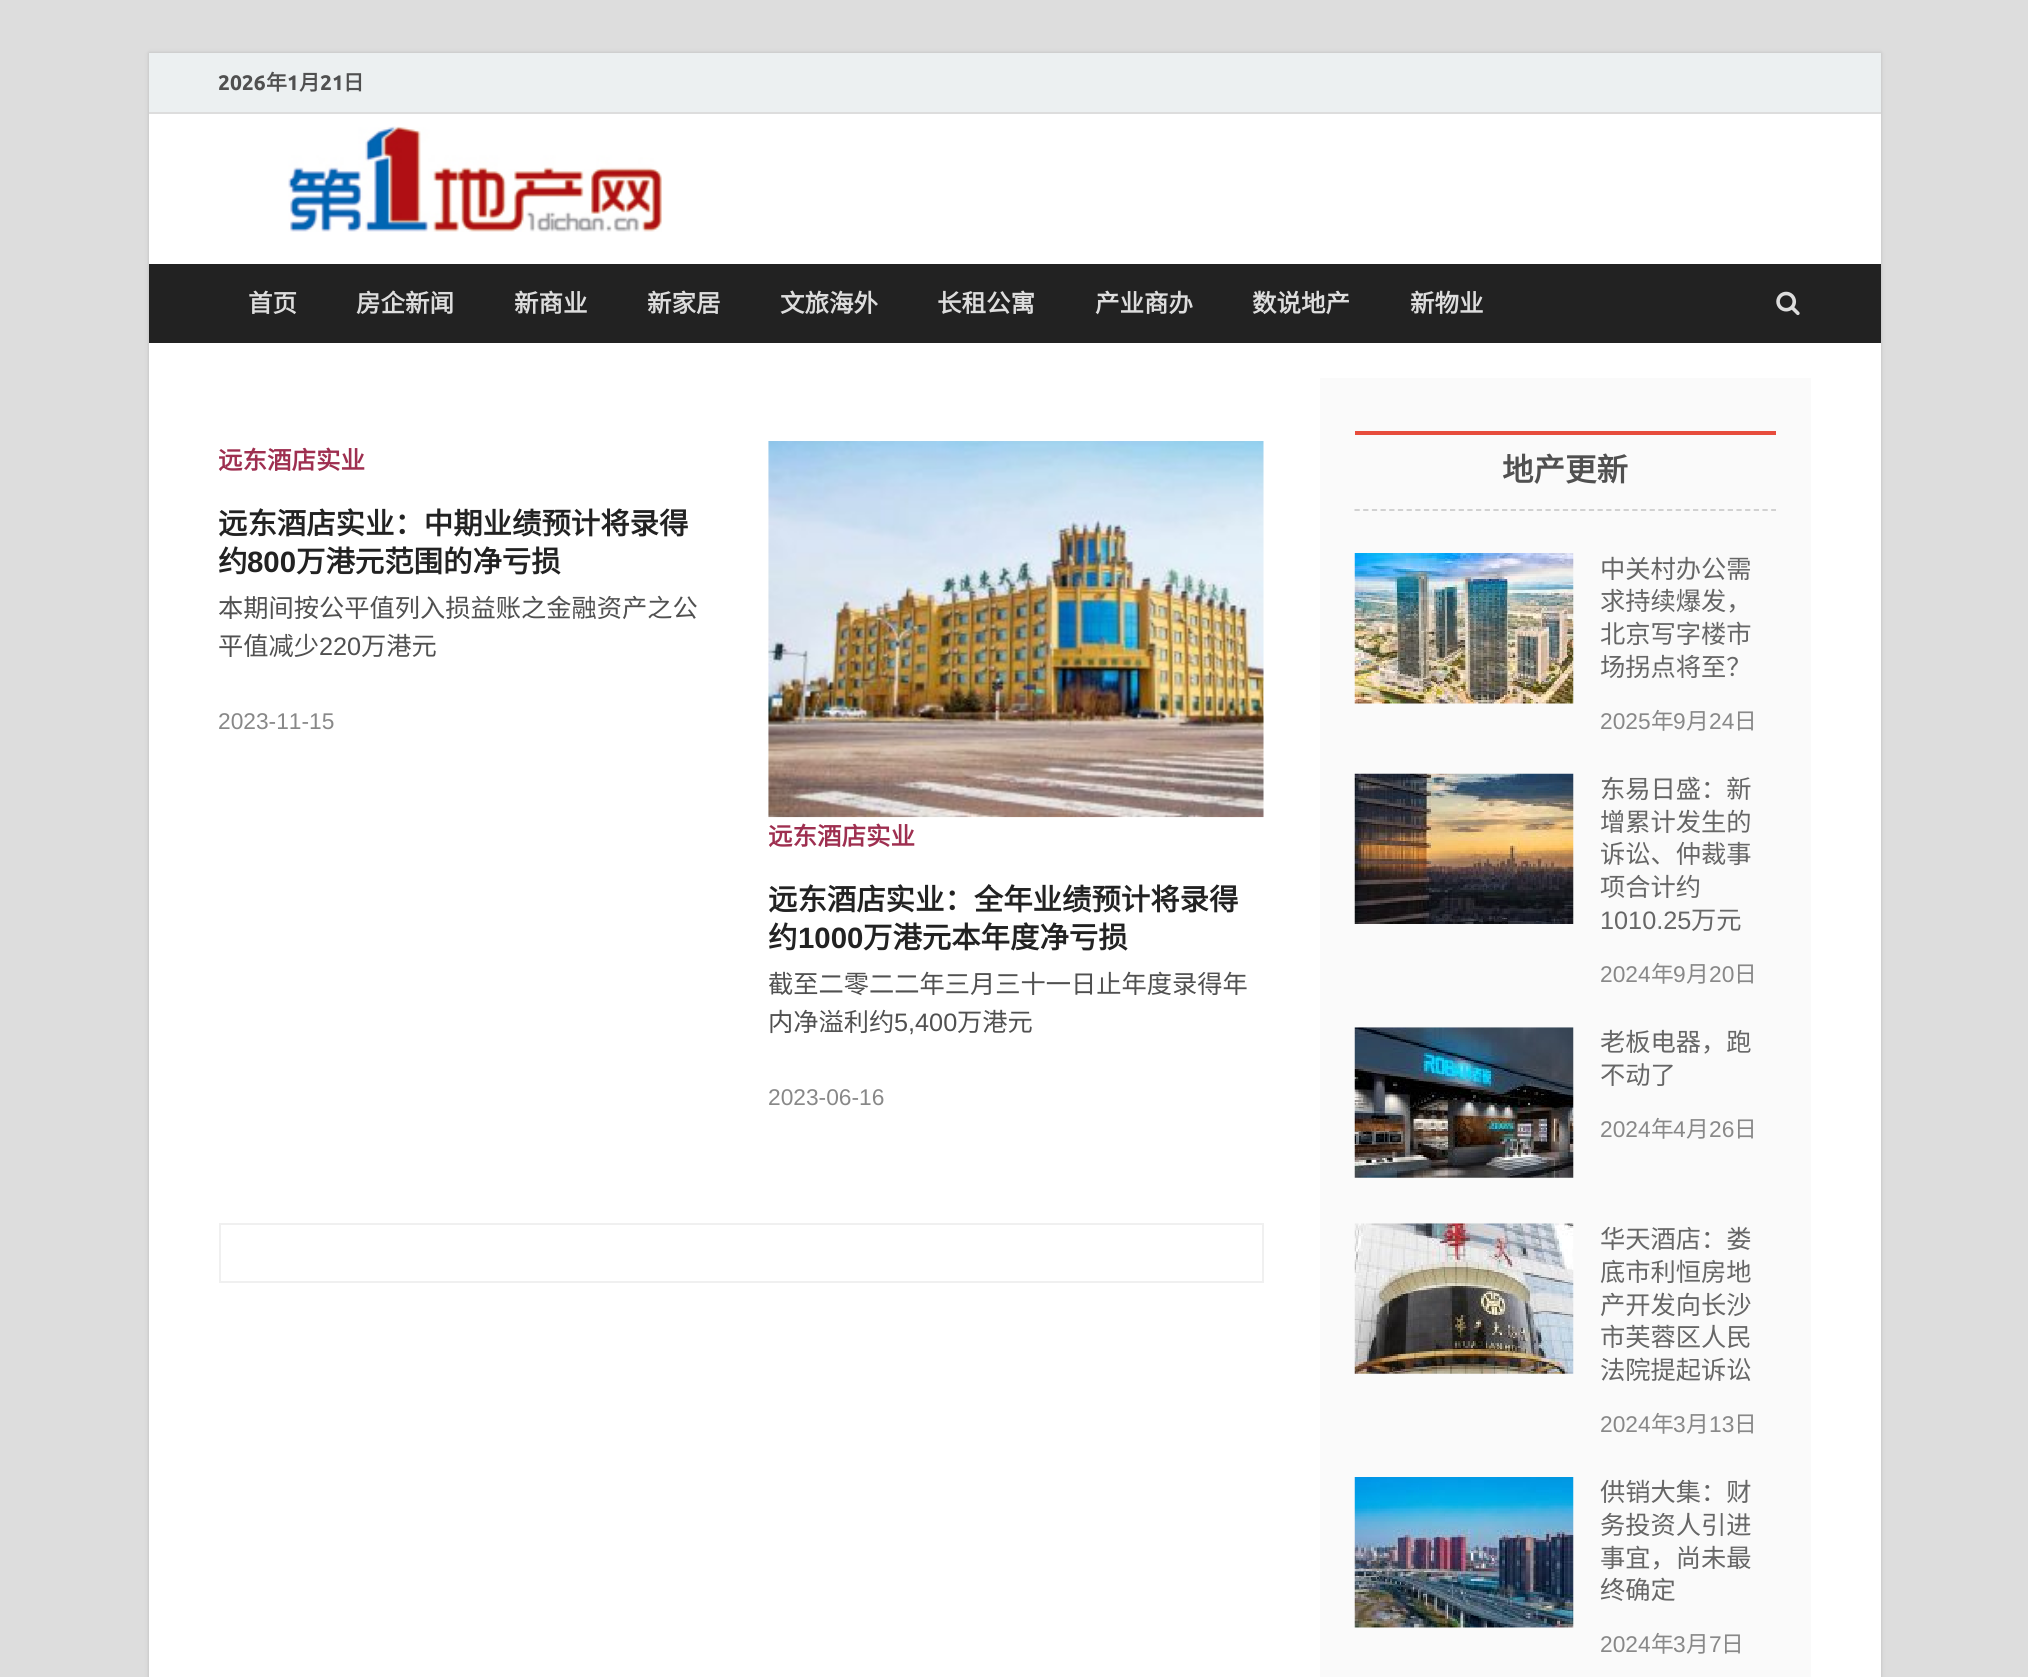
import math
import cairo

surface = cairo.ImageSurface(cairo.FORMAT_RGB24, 2028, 1677)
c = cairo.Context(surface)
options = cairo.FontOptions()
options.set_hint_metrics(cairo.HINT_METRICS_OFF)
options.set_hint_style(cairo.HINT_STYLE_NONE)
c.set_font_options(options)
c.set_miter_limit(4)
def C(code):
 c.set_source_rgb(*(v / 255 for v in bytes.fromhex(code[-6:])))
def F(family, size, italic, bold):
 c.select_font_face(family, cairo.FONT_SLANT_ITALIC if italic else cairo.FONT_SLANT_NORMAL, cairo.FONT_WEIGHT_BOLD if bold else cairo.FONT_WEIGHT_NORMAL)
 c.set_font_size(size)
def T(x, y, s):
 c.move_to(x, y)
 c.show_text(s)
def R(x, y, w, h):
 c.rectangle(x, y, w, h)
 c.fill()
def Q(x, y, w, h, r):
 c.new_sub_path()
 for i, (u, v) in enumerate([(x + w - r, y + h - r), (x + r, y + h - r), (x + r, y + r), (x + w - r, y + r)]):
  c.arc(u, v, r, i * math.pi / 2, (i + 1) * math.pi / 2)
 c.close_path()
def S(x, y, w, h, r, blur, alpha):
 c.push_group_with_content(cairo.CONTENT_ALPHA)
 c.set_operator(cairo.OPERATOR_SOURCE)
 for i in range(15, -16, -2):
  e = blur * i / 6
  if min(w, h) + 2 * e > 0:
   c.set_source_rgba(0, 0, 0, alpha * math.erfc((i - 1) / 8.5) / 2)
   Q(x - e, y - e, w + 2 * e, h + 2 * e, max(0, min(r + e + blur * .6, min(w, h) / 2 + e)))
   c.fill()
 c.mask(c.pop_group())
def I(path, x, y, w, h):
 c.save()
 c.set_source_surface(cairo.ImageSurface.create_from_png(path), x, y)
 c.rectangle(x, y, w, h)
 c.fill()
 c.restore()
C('dddddd')
c.paint()
C('bbbbbb')
S(149,53,1732,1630,0,2,1)
C('ffffff')
R(149,114,1732,1563)
C('ecf0f1')
R(149,53,1732,59)
C('dddddd')
R(149,112,1732,2)
F('Ubuntu',21,0,1)
C('505050')
T(218,90,'2026')
F('Noto Sans CJK SC',21,0,1)
T(266,90,'年')
F('Ubuntu',21,0,1)
T(287,90,'1')
F('Noto Sans CJK SC',21,0,1)
T(299,90,'月')
F('Ubuntu',21,0,1)
T(320,90,'21')
F('Noto Sans CJK SC',21,0,1)
T(343,90,'日')
I('1.png',288,126,374,106)
C('222222')
R(149,264,1732,79)
F('Noto Sans CJK SC',24.5,0,1)
C('dddddd')
T(248,312,'首页')
T(356,312,'房企新闻')
T(514,312,'新商业')
T(647,312,'新家居')
T(780,312,'文旅海外')
T(937,312,'长租公寓')
T(1095,312,'产业商办')
T(1252,312,'数说地产')
T(1410,312,'新物业')
I('2.png',1776,291,24,25)
C('9e2f50')
T(218,469,'远东酒店实业')
F('Noto Sans CJK SC',29.4,0,1)
C('222222')
T(218,534,'远东酒店实业：中期业绩预计将录得')
T(218,572,'约')
F('Liberation Sans',29.4,0,1)
T(247,572,'800')
F('Noto Sans CJK SC',29.4,0,1)
T(296,572,'万港元范围的净亏损')
F('Noto Sans CJK SC',25.25,0,0)
C('505050')
T(218,617,'本期间按公平值列入损益账之金融资产之公')
T(218,655,'平值减少')
F('Liberation Sans',25.25,0,0)
T(319,655,'220')
F('Noto Sans CJK SC',25.25,0,0)
T(361,655,'万港元')
F('Liberation Sans',22.75,0,0)
C('888888')
T(218,729,'2023-11-15')
I('3.png',768,441,496,377)
F('Noto Sans CJK SC',24.5,0,1)
C('9e2f50')
T(768,845,'远东酒店实业')
F('Noto Sans CJK SC',29.4,0,1)
C('222222')
T(768,910,'远东酒店实业：全年业绩预计将录得')
T(768,948,'约')
F('Liberation Sans',29.4,0,1)
T(798,948,'1000')
F('Noto Sans CJK SC',29.4,0,1)
T(863,948,'万港元本年度净亏损')
F('Noto Sans CJK SC',25.25,0,0)
C('505050')
T(768,993,'截至二零二二年三月三十一日止年度录得年')
T(768,1031,'内净溢利约')
F('Liberation Sans',25.25,0,0)
T(894,1031,'5,400')
F('Noto Sans CJK SC',25.25,0,0)
T(957,1031,'万港元')
F('Liberation Sans',22.75,0,0)
C('888888')
T(768,1105,'2023-06-16')
c.rectangle(220,1224,1043,58)
C('f0f0f0')
c.stroke()
C('fafafa')
R(1320,378,491,1299)
C('e74c3c')
R(1355,431,421,4)
c.new_path()
c.move_to(1354.5,510)
c.line_to(1776,510)
C('cccccc')
c.set_line_width(1.8)
c.set_dash([5.25,3.43])
c.stroke()
F('Noto Sans CJK SC',31.5,0,1)
C('505050')
T(1502,481,'地产更新')
I('4.png',1354,553,220,151)
F('Noto Sans CJK SC',25.25,0,0)
C('666666')
T(1600,578,'中关村办公需')
T(1600,610,'求持续爆发，')
T(1600,643,'北京写字楼市')
T(1600,676,'场拐点将至？')
F('Liberation Sans',22.75,0,0)
C('888888')
T(1600,729,'2025')
F('Noto Sans CJK SC',22.75,0,0)
T(1651,729,'年')
F('Liberation Sans',22.75,0,0)
T(1673,729,'9')
F('Noto Sans CJK SC',22.75,0,0)
T(1686,729,'月')
F('Liberation Sans',22.75,0,0)
T(1709,729,'24')
F('Noto Sans CJK SC',22.75,0,0)
T(1734,729,'日')
I('5.png',1354,773,220,151)
F('Noto Sans CJK SC',25.25,0,0)
C('666666')
T(1600,798,'东易日盛：新')
T(1600,831,'增累计发生的')
T(1600,863,'诉讼、仲裁事')
T(1600,896,'项合计约')
F('Liberation Sans',25.25,0,0)
T(1600,929,'1010.25')
F('Noto Sans CJK SC',25.25,0,0)
T(1691,929,'万元')
F('Liberation Sans',22.75,0,0)
C('888888')
T(1600,982,'2024')
F('Noto Sans CJK SC',22.75,0,0)
T(1651,982,'年')
F('Liberation Sans',22.75,0,0)
T(1673,982,'9')
F('Noto Sans CJK SC',22.75,0,0)
T(1686,982,'月')
F('Liberation Sans',22.75,0,0)
T(1709,982,'20')
F('Noto Sans CJK SC',22.75,0,0)
T(1734,982,'日')
I('6.png',1354,1027,220,151)
F('Noto Sans CJK SC',25.25,0,0)
C('666666')
T(1600,1051,'老板电器，跑')
T(1600,1084,'不动了')
F('Liberation Sans',22.75,0,0)
C('888888')
T(1600,1137,'2024')
F('Noto Sans CJK SC',22.75,0,0)
T(1651,1137,'年')
F('Liberation Sans',22.75,0,0)
T(1673,1137,'4')
F('Noto Sans CJK SC',22.75,0,0)
T(1686,1137,'月')
F('Liberation Sans',22.75,0,0)
T(1709,1137,'26')
F('Noto Sans CJK SC',22.75,0,0)
T(1734,1137,'日')
I('7.png',1354,1223,220,151)
F('Noto Sans CJK SC',25.25,0,0)
C('666666')
T(1600,1248,'华天酒店：娄')
T(1600,1281,'底市利恒房地')
T(1600,1314,'产开发向长沙')
T(1600,1346,'市芙蓉区人民')
T(1600,1379,'法院提起诉讼')
F('Liberation Sans',22.75,0,0)
C('888888')
T(1600,1432,'2024')
F('Noto Sans CJK SC',22.75,0,0)
T(1651,1432,'年')
F('Liberation Sans',22.75,0,0)
T(1673,1432,'3')
F('Noto Sans CJK SC',22.75,0,0)
T(1686,1432,'月')
F('Liberation Sans',22.75,0,0)
T(1709,1432,'13')
F('Noto Sans CJK SC',22.75,0,0)
T(1734,1432,'日')
I('8.png',1354,1477,220,151)
F('Noto Sans CJK SC',25.25,0,0)
C('666666')
T(1600,1501,'供销大集：财')
T(1600,1534,'务投资人引进')
T(1600,1567,'事宜，尚未最')
T(1600,1599,'终确定')
F('Liberation Sans',22.75,0,0)
C('888888')
T(1600,1652,'2024')
F('Noto Sans CJK SC',22.75,0,0)
T(1651,1652,'年')
F('Liberation Sans',22.75,0,0)
T(1673,1652,'3')
F('Noto Sans CJK SC',22.75,0,0)
T(1686,1652,'月')
F('Liberation Sans',22.75,0,0)
T(1709,1652,'7')
F('Noto Sans CJK SC',22.75,0,0)
T(1721,1652,'日')
surface.write_to_png('o.png')
